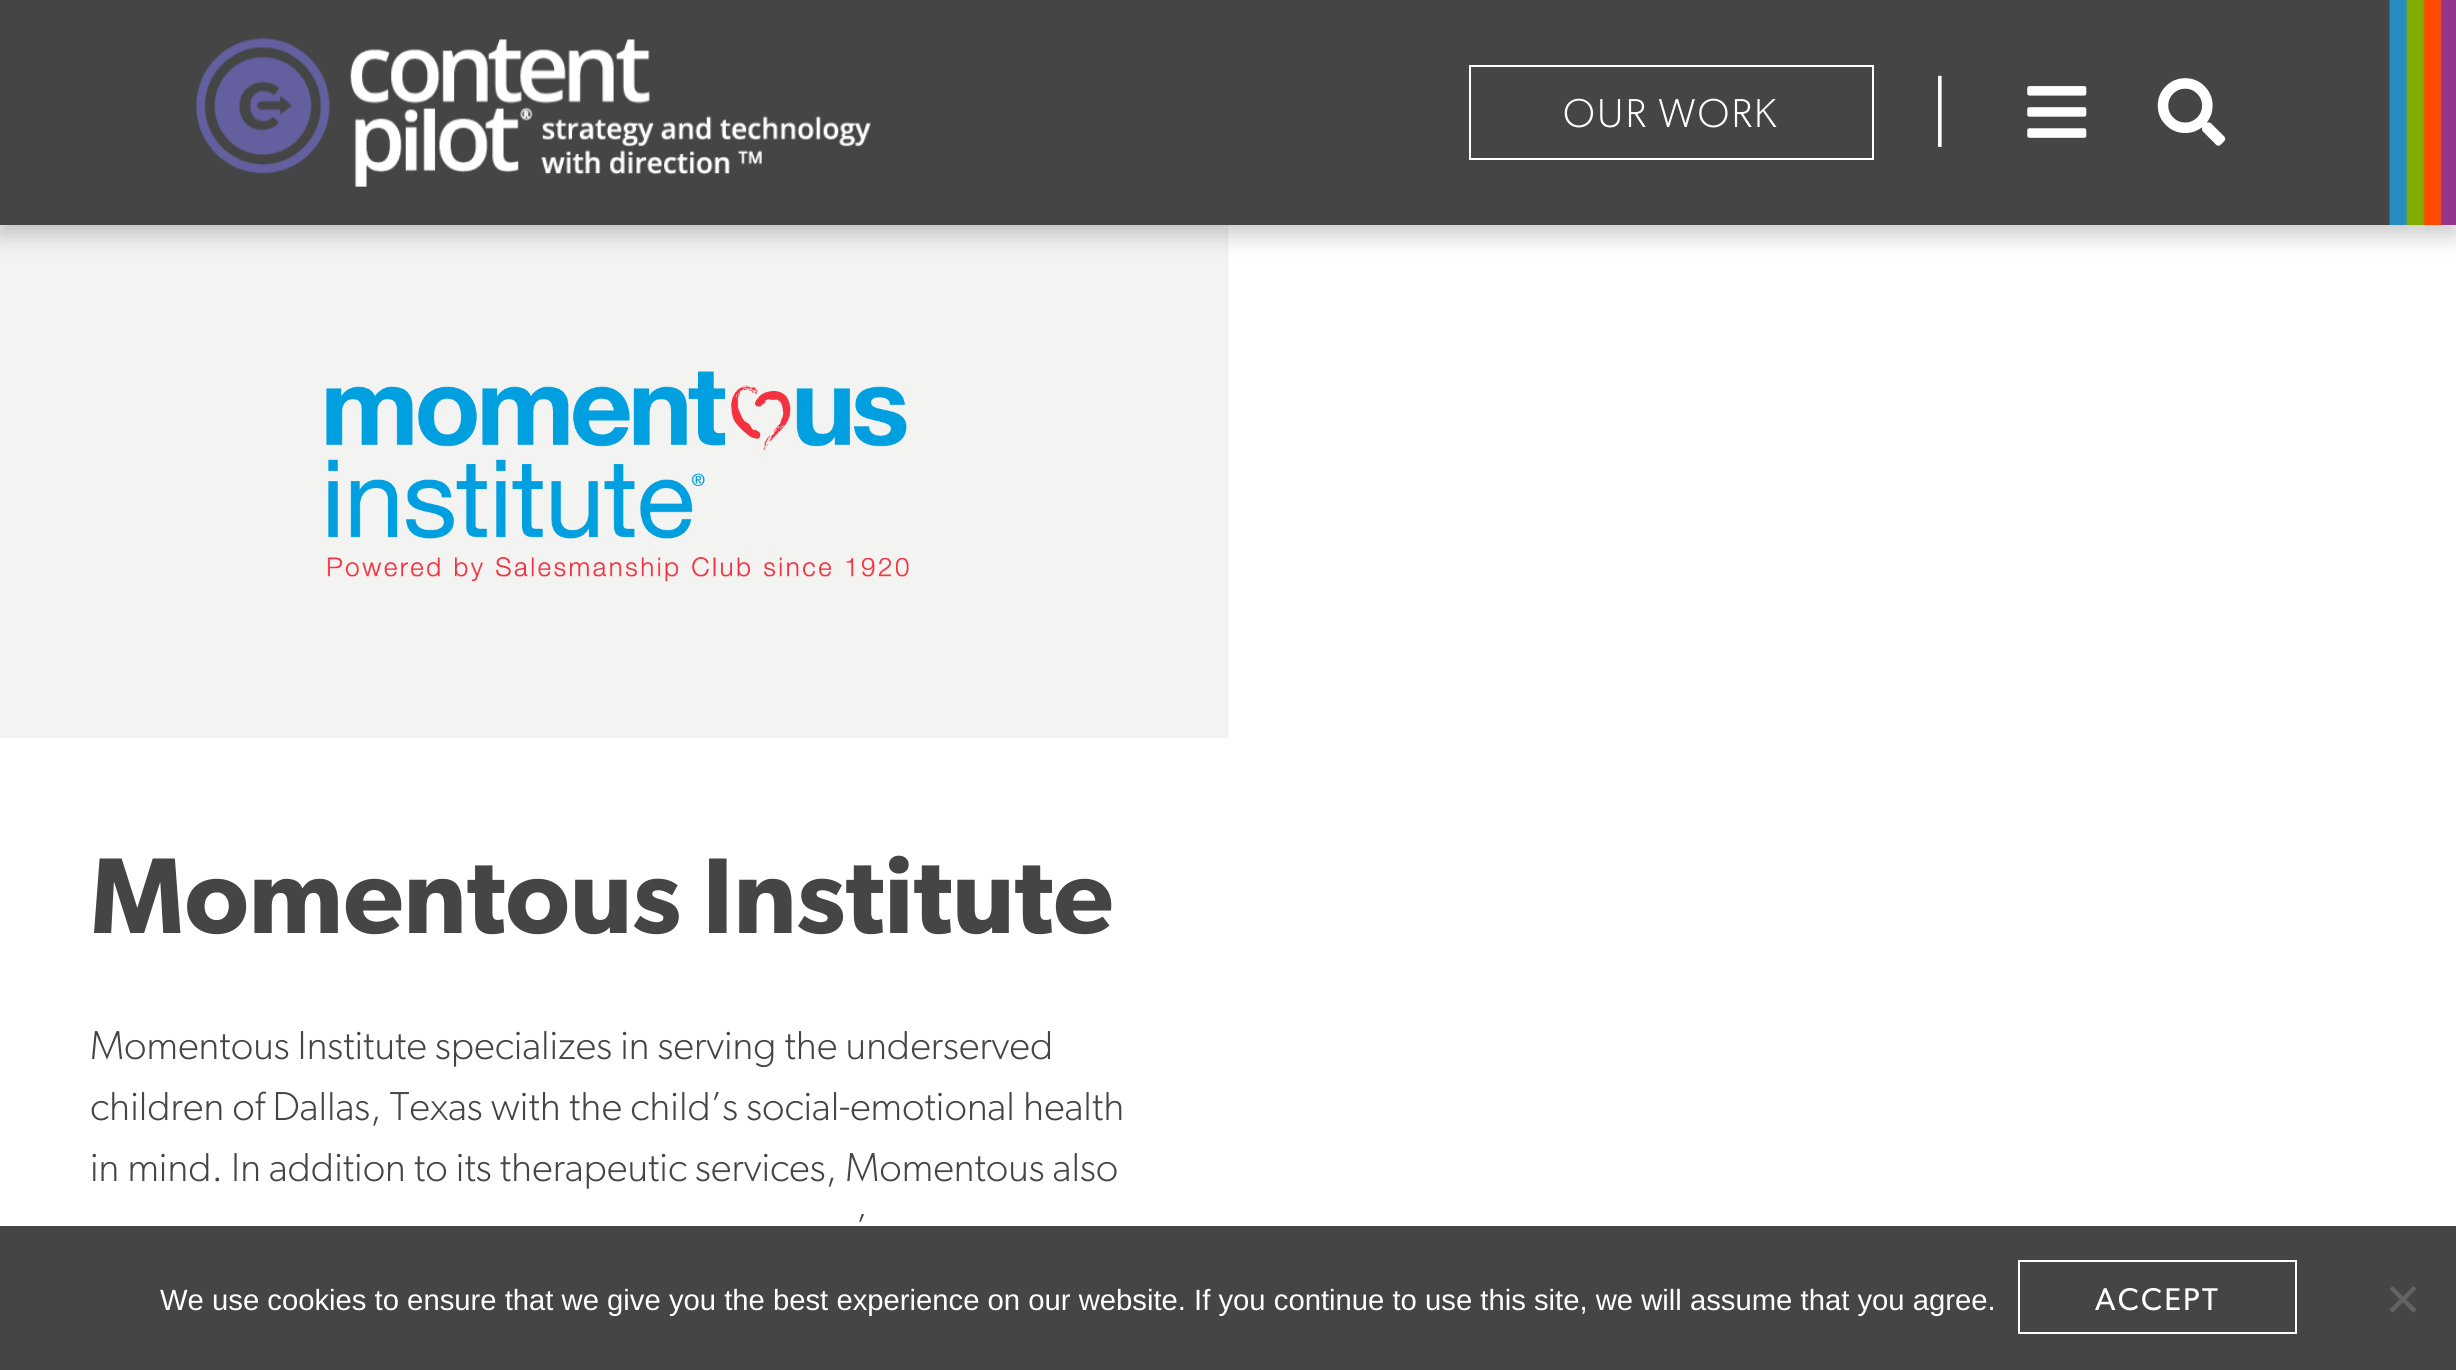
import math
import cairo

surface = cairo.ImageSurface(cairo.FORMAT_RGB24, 2456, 1370)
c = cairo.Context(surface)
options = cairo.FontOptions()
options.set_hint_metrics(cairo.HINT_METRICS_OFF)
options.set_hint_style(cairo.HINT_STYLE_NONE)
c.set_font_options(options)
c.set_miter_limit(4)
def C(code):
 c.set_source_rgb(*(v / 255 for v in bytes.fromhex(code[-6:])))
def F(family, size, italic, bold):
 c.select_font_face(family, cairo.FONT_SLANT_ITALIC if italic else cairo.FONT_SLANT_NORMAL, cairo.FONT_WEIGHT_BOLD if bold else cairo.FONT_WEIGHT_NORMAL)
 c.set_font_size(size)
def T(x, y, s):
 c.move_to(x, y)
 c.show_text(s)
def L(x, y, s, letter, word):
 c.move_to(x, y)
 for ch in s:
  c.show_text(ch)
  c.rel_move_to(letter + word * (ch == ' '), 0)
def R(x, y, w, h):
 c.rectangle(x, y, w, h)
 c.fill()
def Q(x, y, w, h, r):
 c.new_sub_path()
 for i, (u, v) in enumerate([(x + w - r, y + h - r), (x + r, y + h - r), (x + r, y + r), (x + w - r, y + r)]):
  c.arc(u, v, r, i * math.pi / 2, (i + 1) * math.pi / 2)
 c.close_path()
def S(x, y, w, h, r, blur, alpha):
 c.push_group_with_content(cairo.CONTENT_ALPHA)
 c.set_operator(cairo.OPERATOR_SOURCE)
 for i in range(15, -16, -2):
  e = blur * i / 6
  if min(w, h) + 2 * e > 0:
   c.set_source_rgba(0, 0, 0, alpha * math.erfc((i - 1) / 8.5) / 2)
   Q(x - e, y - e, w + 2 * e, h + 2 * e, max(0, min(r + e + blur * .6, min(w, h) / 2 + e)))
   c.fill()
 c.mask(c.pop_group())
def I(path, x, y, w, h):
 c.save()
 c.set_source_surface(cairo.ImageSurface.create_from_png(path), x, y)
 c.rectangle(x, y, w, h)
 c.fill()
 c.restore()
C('ffffff')
c.paint()
I('5.png',0,225,1229,513)
C('000000')
S(0,11,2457,225,0,11,.2)
C('454545')
R(0,0,2391,225)
I('1.png',2389,0,67,225)
I('2.png',196,38,675,149)
c.rectangle(1470,66,403,93)
C('ffffff')
c.stroke()
F('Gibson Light',40.5,0,0)
L(1563,127,'OUR WORK',2.25,0)
F('Gibson Light',79,0,0)
T(1930,139,'|')
I('3.png',2027,86,60,52)
I('4.png',2157,78,69,68)
F('Gibson SemiBold',108,0,0)
C('454545')
T(90,933,'Momentous Institute')
F('Gibson Light',40.5,0,0)
T(90,1059,'Momentous Institute specializes in serving the underserved')
T(90,1120,'children of Dallas, Texas with the child’s social-emotional health')
T(90,1181,'in mind. In addition to its therapeutic services, Momentous also')
T(856,1242,'’')
R(0,1226,2456,144)
F('Liberation Sans',29.25,0,0)
C('ffffff')
T(160,1310,'We use cookies to ensure that we give you the best experience on our website. If you continue to use this site, we will assume that you agree.')
c.rectangle(2019,1261,277,72)
c.stroke()
F('Gibson',31.5,0,0)
L(2095,1310,'ACCEPT',2.25,0)
C('636363')
c.new_path()
c.move_to(2413.5,1286)
c.line_to(2416.5,1289)
c.line_to(2392.5,1313)
c.line_to(2389.5,1309.5)
c.close_path()
c.fill()
c.new_path()
c.move_to(2389.5,1289)
c.line_to(2392.5,1286)
c.line_to(2416.5,1309.5)
c.line_to(2413.5,1313)
c.close_path()
c.fill()
surface.write_to_png('o.png')
